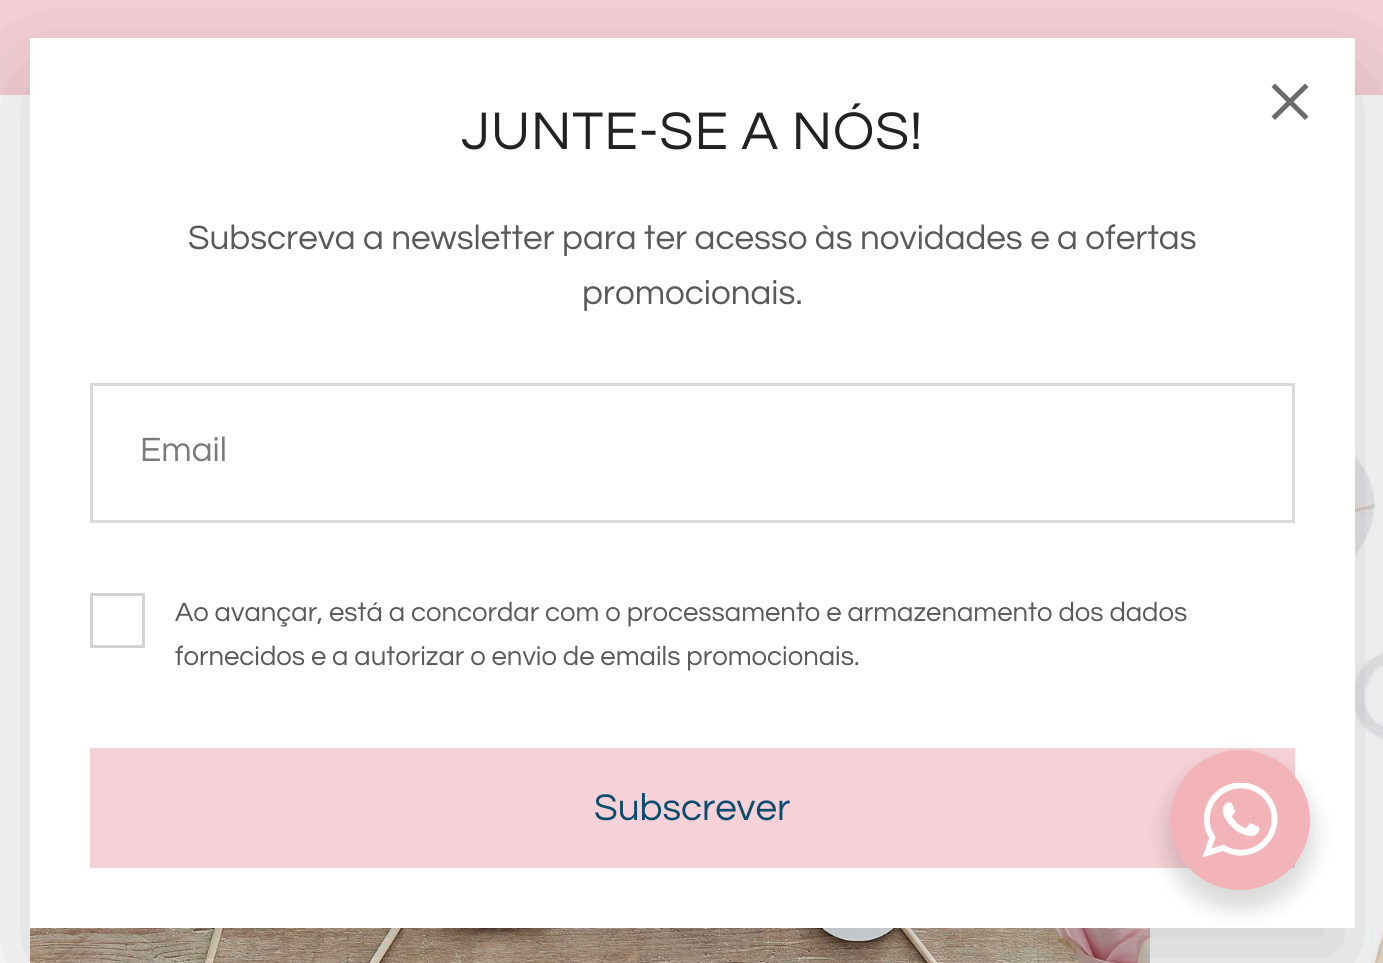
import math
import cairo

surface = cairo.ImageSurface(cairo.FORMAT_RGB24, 1383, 963)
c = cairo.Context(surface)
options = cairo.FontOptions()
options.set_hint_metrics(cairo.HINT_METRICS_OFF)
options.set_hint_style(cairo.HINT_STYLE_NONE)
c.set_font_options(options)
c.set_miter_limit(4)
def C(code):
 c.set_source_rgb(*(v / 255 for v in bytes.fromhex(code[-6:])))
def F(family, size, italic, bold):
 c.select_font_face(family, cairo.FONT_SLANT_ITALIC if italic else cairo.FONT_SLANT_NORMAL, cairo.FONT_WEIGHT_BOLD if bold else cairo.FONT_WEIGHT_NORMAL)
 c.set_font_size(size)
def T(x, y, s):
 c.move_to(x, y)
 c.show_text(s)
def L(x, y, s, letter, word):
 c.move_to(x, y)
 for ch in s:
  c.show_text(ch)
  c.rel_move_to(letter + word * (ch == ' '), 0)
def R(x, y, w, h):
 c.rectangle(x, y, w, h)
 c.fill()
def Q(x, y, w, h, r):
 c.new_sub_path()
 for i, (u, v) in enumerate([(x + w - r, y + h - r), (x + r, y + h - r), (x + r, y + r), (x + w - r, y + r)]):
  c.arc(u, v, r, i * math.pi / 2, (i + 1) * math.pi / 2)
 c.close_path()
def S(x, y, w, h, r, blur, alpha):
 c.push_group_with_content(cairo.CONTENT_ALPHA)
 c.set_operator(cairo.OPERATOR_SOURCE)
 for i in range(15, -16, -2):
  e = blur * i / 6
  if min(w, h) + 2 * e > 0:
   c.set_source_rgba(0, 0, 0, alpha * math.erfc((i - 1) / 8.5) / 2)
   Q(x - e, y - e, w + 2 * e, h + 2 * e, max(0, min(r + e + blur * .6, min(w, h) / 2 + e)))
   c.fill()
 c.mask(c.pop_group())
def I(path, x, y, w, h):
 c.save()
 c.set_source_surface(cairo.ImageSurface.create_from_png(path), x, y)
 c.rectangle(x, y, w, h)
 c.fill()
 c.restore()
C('ffffff')
c.paint()
C('f7d1d8')
R(0,0,1383,95)
I('1.png',30,928,1120,35)
I('2.png',1200,365,183,598)
C('000000')
S(30,78,1325,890,0,60,.2)
C('ffffff')
R(30,38,1325,890)
F('Questrial',55,0,0)
C('222222')
L(461,149,'JUNTE-SE A NÓS!',1,0)
F('Questrial',35,0,0)
C('595959')
T(188,249,'Subscreva a newsletter para ter acesso às novidades e a ofertas')
T(582,304,'promocionais.')
c.rectangle(91.5,384.5,1202,137)
C('dadada')
c.set_line_width(3)
c.stroke()
C('7a7a7a')
T(140,461,'Email')
c.rectangle(91.5,594.5,52,52)
C('d3d3d3')
c.stroke()
F('Questrial',27.5,0,0)
C('595959')
T(175,621,'Ao avançar, está a concordar com o processamento e armazenamento dos dados')
T(175,665,'fornecidos e a autorizar o envio de emails promocionais.')
C('f7d1d8')
R(90,748,1205,120)
F('Questrial',38.5,0,0)
C('084d6e')
T(594,820,'Subscrever')
C('6b6b6b')
c.new_path()
c.move_to(1275,83.5)
c.line_to(1308.5,116.5)
c.line_to(1305,120)
c.line_to(1271.5,87)
c.close_path()
c.fill()
c.new_path()
c.move_to(1271.5,116.5)
c.line_to(1305,83.5)
c.line_to(1308.5,87)
c.line_to(1275,120)
c.close_path()
c.fill()
C('000000')
S(1165,760,150,150,75,10,.14)
C('f2b3b9')
c.arc(1240,820,70,0,2 * math.pi)
c.fill()
I('3.png',1203,783,75,75)
surface.write_to_png('o.png')
